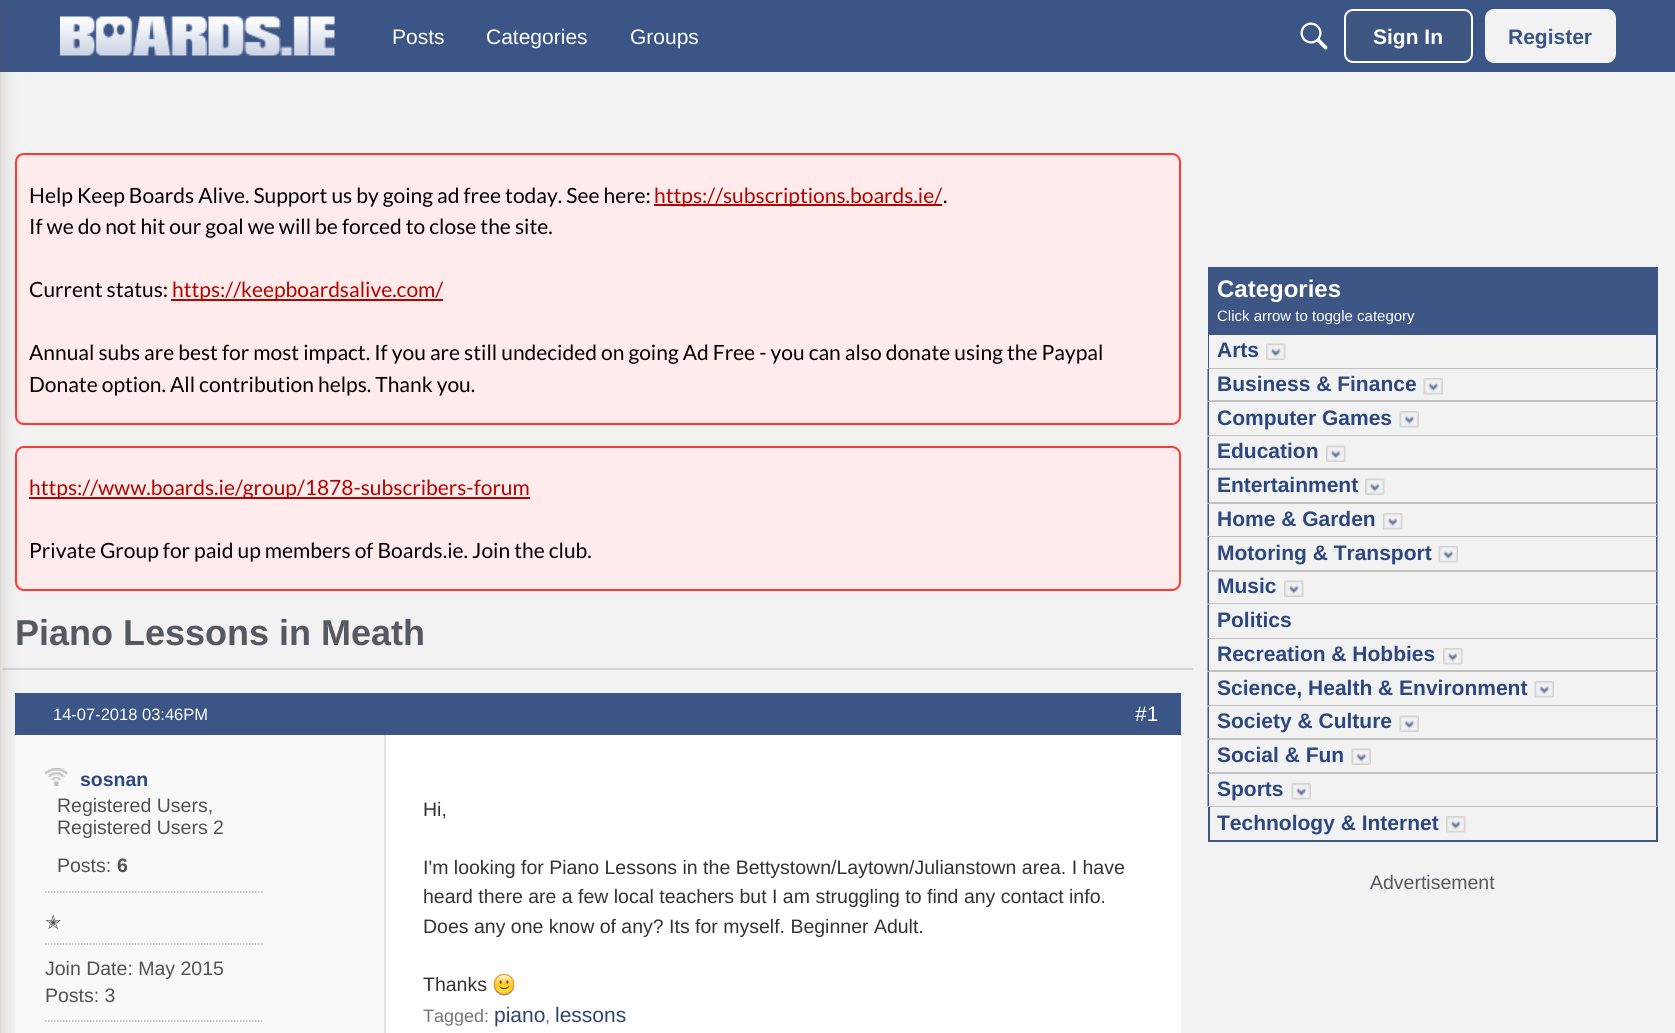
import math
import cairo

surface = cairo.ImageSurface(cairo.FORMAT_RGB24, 1675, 1033)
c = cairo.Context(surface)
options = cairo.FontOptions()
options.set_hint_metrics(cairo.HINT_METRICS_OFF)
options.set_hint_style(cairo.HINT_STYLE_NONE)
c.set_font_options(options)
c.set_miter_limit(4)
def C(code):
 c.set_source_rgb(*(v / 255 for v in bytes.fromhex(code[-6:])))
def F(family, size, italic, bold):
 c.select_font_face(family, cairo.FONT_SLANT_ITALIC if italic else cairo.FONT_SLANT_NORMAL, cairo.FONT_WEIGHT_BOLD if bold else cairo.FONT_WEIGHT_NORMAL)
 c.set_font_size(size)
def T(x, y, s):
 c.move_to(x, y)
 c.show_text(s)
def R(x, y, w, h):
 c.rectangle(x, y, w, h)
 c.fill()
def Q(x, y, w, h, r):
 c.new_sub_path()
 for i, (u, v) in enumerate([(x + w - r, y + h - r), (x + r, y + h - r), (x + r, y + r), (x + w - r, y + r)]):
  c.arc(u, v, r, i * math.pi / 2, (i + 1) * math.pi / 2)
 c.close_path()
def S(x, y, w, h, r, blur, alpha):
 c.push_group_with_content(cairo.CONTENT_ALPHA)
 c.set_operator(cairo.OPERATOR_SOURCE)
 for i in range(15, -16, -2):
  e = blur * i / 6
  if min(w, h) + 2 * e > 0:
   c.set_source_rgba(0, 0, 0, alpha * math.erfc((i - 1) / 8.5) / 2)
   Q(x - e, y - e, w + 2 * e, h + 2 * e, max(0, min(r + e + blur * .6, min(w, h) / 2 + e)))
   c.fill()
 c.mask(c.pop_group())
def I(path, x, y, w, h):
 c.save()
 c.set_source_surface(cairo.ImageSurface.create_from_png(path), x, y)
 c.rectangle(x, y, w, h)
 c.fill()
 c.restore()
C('f2f2f2')
c.paint()
C('3b5586')
R(0,0,1675,72)
C('ffebeb')
Q(16,154,1164,270,8)
c.fill_preserve()
C('ff3933')
c.stroke()
C('ffebeb')
Q(16,447,1164,143,8)
c.fill_preserve()
C('ff3933')
c.stroke()
C('d3d4d5')
R(3,668,1190,2)
C('3b5586')
R(15,693,1166,42)
C('f9f9f9')
R(15,735,369,298)
C('6b5252')
S(-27,9,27,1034,0,9,.3)
I('1.png',60,16,275,40)
F('Liberation Sans',21,0,0)
C('ffffff')
T(392,44,'Posts')
T(486,44,'Categories')
T(630,44,'Groups')
I('2.png',1300,22,28,28)
C('3e5682')
Q(1345,10,127,52,8)
c.fill_preserve()
C('ffffff')
c.stroke()
F('Liberation Sans',21,0,1)
T(1373,44,'Sign In')
C('f2f2f2')
Q(1486,10,129,52,8)
c.fill_preserve()
c.stroke()
C('3b5586')
T(1508,44,'Register')
F('Lato',21,0,0)
C('000000')
T(29,203,'Help Keep Boards Alive. Support us by going ad free today. See here:')
C('b30500')
R(654,204,288,2)
T(654,203,'https://subscriptions.boards.ie/')
C('000000')
T(943,203,'.')
T(29,234,'If we do not hit our goal we will be forced to close the site.')
T(29,297,'Current status:')
C('b30500')
R(171,299,272,2)
T(172,297,'https://keepboardsalive.com/')
C('000000')
T(29,360,'Annual subs are best for most impact. If you are still undecided on going Ad Free - you can also donate using the Paypal')
T(29,392,'Donate option. All contribution helps. Thank you.')
C('b30500')
R(29,497,501,2)
T(29,495,'https://www.boards.ie/group/1878-subscribers-forum')
C('000000')
T(29,558,'Private Group for paid up members of Boards.ie. Join the club.')
F('Liberation Sans',36,0,1)
C('555a62')
T(15,645,'Piano Lessons in Meath')
F('Liberation Sans',16.5,0,0)
C('ffffff')
T(53,720,'14-07-2018 03:46PM')
F('Liberation Sans',21,0,0)
T(1135,721,'#1')
c.new_path()
c.move_to(45,892)
c.line_to(264,892)
C('b7b7b7')
c.set_line_width(1.5)
c.set_dash([1.5,1.5])
c.stroke()
I('3.png',45,768,23,18)
F('Liberation Sans',19.5,0,1)
C('2d4780')
T(80,786,'sosnan')
F('Liberation Sans',19.5,0,0)
C('525252')
T(57,812,'Registered Users,')
T(57,834,'Registered Users 2')
T(57,872,'Posts:')
F('Liberation Sans',19.5,0,1)
T(117,872,'6')
c.new_path()
c.move_to(45,944)
c.line_to(264,944)
C('b7b7b7')
c.stroke()
F('DejaVu Sans',19.5,0,0)
C('525252')
T(45,929,'✭')
c.new_path()
c.move_to(45,1021)
c.line_to(264,1021)
C('b7b7b7')
c.stroke()
F('Liberation Sans',19.5,0,0)
C('525252')
T(45,975,'Join Date: May 2015')
T(45,1002,'Posts: 3')
C('ffffff')
R(386,735,795,298)
C('e2e2e2')
R(384,735,2,298)
C('333333')
T(423,816,'Hi,')
T(423,874,'I\'m looking for Piano Lessons in the Bettystown/Laytown/Julianstown area. I have')
T(423,903,'heard there are a few local teachers but I am struggling to find any contact info.')
T(423,933,'Does any one know of any? Its for myself. Beginner Adult.')
T(423,991,'Thanks')
I('4.png',493,974,22,22)
F('Liberation Sans',18,0,0)
C('767676')
T(423,1022,'Tagged:')
F('Liberation Sans',21,0,0)
C('30456d')
T(494,1022,'piano')
F('Liberation Sans',18,0,0)
C('767676')
T(545,1022,',')
F('Liberation Sans',21,0,0)
C('30456d')
T(555,1022,'lessons')
C('3d5686')
c.new_path()
c.move_to(1658,267)
c.line_to(1658,369)
c.line_to(1656,368)
c.line_to(1656,267)
c.close_path()
c.fill()
c.set_source_rgba(0,0,0,0.2)
c.new_path()
c.move_to(1658,369)
c.line_to(1208,369)
c.line_to(1209,368)
c.line_to(1656,368)
c.close_path()
c.fill()
C('3d5686')
c.new_path()
c.move_to(1208,369)
c.line_to(1208,267)
c.line_to(1209,267)
c.line_to(1209,368)
c.close_path()
c.fill()
R(1209,267,447,68)
F('Liberation Sans',24,0,1)
C('ffffff')
T(1217,297,'Categories')
F('Liberation Sans',15,0,0)
T(1217,321,'Click arrow to toggle category')
F('Liberation Sans',21,0,1)
C('2d4780')
T(1217,357,'Arts')
I('5.png',1266,343,20,17)
C('3d5686')
c.new_path()
c.move_to(1657.5,369)
c.line_to(1657.5,402)
c.line_to(1656,400.5)
c.line_to(1656,369)
c.close_path()
c.fill()
c.set_source_rgba(0,0,0,0.2)
c.new_path()
c.move_to(1658,402)
c.line_to(1208,402)
c.line_to(1209,400)
c.line_to(1656,400)
c.close_path()
c.fill()
C('3d5686')
c.new_path()
c.move_to(1207.5,402)
c.line_to(1207.5,369)
c.line_to(1209,369)
c.line_to(1209,400.5)
c.close_path()
c.fill()
C('2d4780')
T(1217,391,'Business & Finance')
I('6.png',1423,378,20,17)
C('3d5686')
c.new_path()
c.move_to(1657.5,402)
c.line_to(1657.5,436.5)
c.line_to(1656,435)
c.line_to(1656,402)
c.close_path()
c.fill()
c.set_source_rgba(0,0,0,0.2)
c.new_path()
c.move_to(1658,436)
c.line_to(1208,436)
c.line_to(1209,435)
c.line_to(1656,435)
c.close_path()
c.fill()
C('3d5686')
c.new_path()
c.move_to(1207.5,436.5)
c.line_to(1207.5,402)
c.line_to(1209,402)
c.line_to(1209,435)
c.close_path()
c.fill()
C('2d4780')
T(1217,425,'Computer Games')
I('6.png',1399,411,20,17)
C('3d5686')
c.new_path()
c.move_to(1657.5,436.5)
c.line_to(1657.5,469.5)
c.line_to(1656,468)
c.line_to(1656,436.5)
c.close_path()
c.fill()
c.set_source_rgba(0,0,0,0.2)
c.new_path()
c.move_to(1658,470)
c.line_to(1208,470)
c.line_to(1209,468)
c.line_to(1656,468)
c.close_path()
c.fill()
C('3d5686')
c.new_path()
c.move_to(1207.5,469.5)
c.line_to(1207.5,436.5)
c.line_to(1209,436.5)
c.line_to(1209,468)
c.close_path()
c.fill()
C('2d4780')
T(1217,458,'Education')
I('7.png',1326,445,20,17)
C('3d5686')
c.new_path()
c.move_to(1657.5,469.5)
c.line_to(1657.5,504)
c.line_to(1656,502.5)
c.line_to(1656,469.5)
c.close_path()
c.fill()
c.set_source_rgba(0,0,0,0.2)
c.new_path()
c.move_to(1658,504)
c.line_to(1208,504)
c.line_to(1209,502)
c.line_to(1656,502)
c.close_path()
c.fill()
C('3d5686')
c.new_path()
c.move_to(1207.5,504)
c.line_to(1207.5,469.5)
c.line_to(1209,469.5)
c.line_to(1209,502.5)
c.close_path()
c.fill()
C('2d4780')
T(1217,492,'Entertainment')
I('7.png',1365,478,20,17)
C('3d5686')
c.new_path()
c.move_to(1657.5,504)
c.line_to(1657.5,537)
c.line_to(1656,535.5)
c.line_to(1656,504)
c.close_path()
c.fill()
c.set_source_rgba(0,0,0,0.2)
c.new_path()
c.move_to(1658,537)
c.line_to(1208,537)
c.line_to(1209,536)
c.line_to(1656,536)
c.close_path()
c.fill()
C('3d5686')
c.new_path()
c.move_to(1207.5,537)
c.line_to(1207.5,504)
c.line_to(1209,504)
c.line_to(1209,535.5)
c.close_path()
c.fill()
C('2d4780')
T(1217,526,'Home & Garden')
I('8.png',1383,513,20,17)
C('3d5686')
c.new_path()
c.move_to(1657.5,537)
c.line_to(1657.5,571.5)
c.line_to(1656,570)
c.line_to(1656,537)
c.close_path()
c.fill()
c.set_source_rgba(0,0,0,0.2)
c.new_path()
c.move_to(1658,572)
c.line_to(1208,572)
c.line_to(1209,570)
c.line_to(1656,570)
c.close_path()
c.fill()
C('3d5686')
c.new_path()
c.move_to(1207.5,571.5)
c.line_to(1207.5,537)
c.line_to(1209,537)
c.line_to(1209,570)
c.close_path()
c.fill()
C('2d4780')
T(1217,560,'Motoring & Transport')
I('6.png',1438,546,20,17)
C('3d5686')
c.new_path()
c.move_to(1657.5,571.5)
c.line_to(1657.5,604.5)
c.line_to(1656,603)
c.line_to(1656,571.5)
c.close_path()
c.fill()
c.set_source_rgba(0,0,0,0.2)
c.new_path()
c.move_to(1658,604)
c.line_to(1208,604)
c.line_to(1209,603)
c.line_to(1656,603)
c.close_path()
c.fill()
C('3d5686')
c.new_path()
c.move_to(1207.5,604.5)
c.line_to(1207.5,571.5)
c.line_to(1209,571.5)
c.line_to(1209,603)
c.close_path()
c.fill()
C('2d4780')
T(1217,593,'Music')
I('9.png',1284,580,20,17)
C('3d5686')
c.new_path()
c.move_to(1657.5,604.5)
c.line_to(1657.5,639)
c.line_to(1656,637.5)
c.line_to(1656,604.5)
c.close_path()
c.fill()
c.set_source_rgba(0,0,0,0.2)
c.new_path()
c.move_to(1658,639)
c.line_to(1208,639)
c.line_to(1209,638)
c.line_to(1656,638)
c.close_path()
c.fill()
C('3d5686')
c.new_path()
c.move_to(1207.5,639)
c.line_to(1207.5,604.5)
c.line_to(1209,604.5)
c.line_to(1209,637.5)
c.close_path()
c.fill()
C('2d4780')
T(1217,627,'Politics')
C('3d5686')
c.new_path()
c.move_to(1657.5,639)
c.line_to(1657.5,672)
c.line_to(1656,670.5)
c.line_to(1656,639)
c.close_path()
c.fill()
c.set_source_rgba(0,0,0,0.2)
c.new_path()
c.move_to(1658,672)
c.line_to(1208,672)
c.line_to(1209,670)
c.line_to(1656,670)
c.close_path()
c.fill()
C('3d5686')
c.new_path()
c.move_to(1207.5,672)
c.line_to(1207.5,639)
c.line_to(1209,639)
c.line_to(1209,670.5)
c.close_path()
c.fill()
C('2d4780')
T(1217,661,'Recreation & Hobbies')
I('8.png',1443,648,20,17)
C('3d5686')
c.new_path()
c.move_to(1657.5,672)
c.line_to(1657.5,706.5)
c.line_to(1656,705)
c.line_to(1656,672)
c.close_path()
c.fill()
c.set_source_rgba(0,0,0,0.2)
c.new_path()
c.move_to(1658,706)
c.line_to(1208,706)
c.line_to(1209,705)
c.line_to(1656,705)
c.close_path()
c.fill()
C('3d5686')
c.new_path()
c.move_to(1207.5,706.5)
c.line_to(1207.5,672)
c.line_to(1209,672)
c.line_to(1209,705)
c.close_path()
c.fill()
C('2d4780')
T(1217,695,'Science, Health & Environment')
I('10.png',1534,681,20,17)
C('3d5686')
c.new_path()
c.move_to(1657.5,706.5)
c.line_to(1657.5,739.5)
c.line_to(1656,738)
c.line_to(1656,706.5)
c.close_path()
c.fill()
c.set_source_rgba(0,0,0,0.2)
c.new_path()
c.move_to(1658,740)
c.line_to(1208,740)
c.line_to(1209,738)
c.line_to(1656,738)
c.close_path()
c.fill()
C('3d5686')
c.new_path()
c.move_to(1207.5,739.5)
c.line_to(1207.5,706.5)
c.line_to(1209,706.5)
c.line_to(1209,738)
c.close_path()
c.fill()
C('2d4780')
T(1217,728,'Society & Culture')
I('11.png',1399,715,20,17)
C('3d5686')
c.new_path()
c.move_to(1657.5,739.5)
c.line_to(1657.5,774)
c.line_to(1656,772.5)
c.line_to(1656,739.5)
c.close_path()
c.fill()
c.set_source_rgba(0,0,0,0.2)
c.new_path()
c.move_to(1658,774)
c.line_to(1208,774)
c.line_to(1209,772)
c.line_to(1656,772)
c.close_path()
c.fill()
C('3d5686')
c.new_path()
c.move_to(1207.5,774)
c.line_to(1207.5,739.5)
c.line_to(1209,739.5)
c.line_to(1209,772.5)
c.close_path()
c.fill()
C('2d4780')
T(1217,762,'Social & Fun')
I('11.png',1351,748,20,17)
C('3d5686')
c.new_path()
c.move_to(1657.5,774)
c.line_to(1657.5,807)
c.line_to(1656,805.5)
c.line_to(1656,774)
c.close_path()
c.fill()
c.set_source_rgba(0,0,0,0.2)
c.new_path()
c.move_to(1658,807)
c.line_to(1208,807)
c.line_to(1209,806)
c.line_to(1656,806)
c.close_path()
c.fill()
C('3d5686')
c.new_path()
c.move_to(1207.5,807)
c.line_to(1207.5,774)
c.line_to(1209,774)
c.line_to(1209,805.5)
c.close_path()
c.fill()
C('2d4780')
T(1217,796,'Sports')
I('6.png',1291,783,20,17)
C('3d5686')
R(1656,807,2,35)
R(1208,840,450,2)
R(1208,807,2,35)
C('2d4780')
T(1217,830,'Technology & Internet')
I('8.png',1446,816,20,17)
F('Liberation Sans',19.5,0,0)
C('555a62')
T(1370,889,'Advertisement')
surface.write_to_png('o.png')
